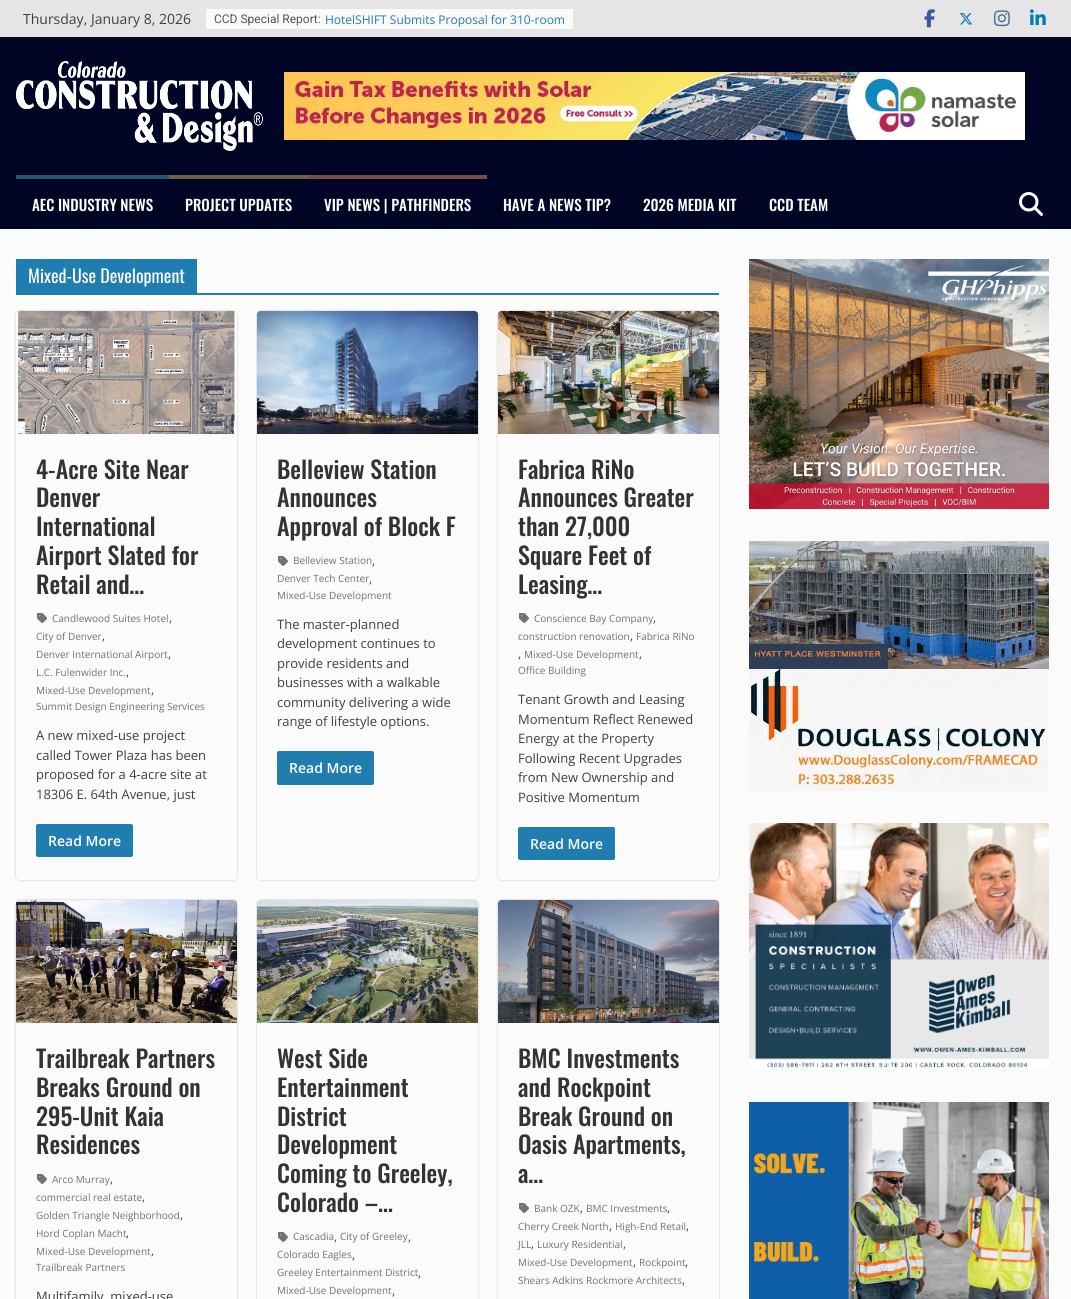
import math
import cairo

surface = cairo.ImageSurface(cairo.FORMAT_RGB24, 1071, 1299)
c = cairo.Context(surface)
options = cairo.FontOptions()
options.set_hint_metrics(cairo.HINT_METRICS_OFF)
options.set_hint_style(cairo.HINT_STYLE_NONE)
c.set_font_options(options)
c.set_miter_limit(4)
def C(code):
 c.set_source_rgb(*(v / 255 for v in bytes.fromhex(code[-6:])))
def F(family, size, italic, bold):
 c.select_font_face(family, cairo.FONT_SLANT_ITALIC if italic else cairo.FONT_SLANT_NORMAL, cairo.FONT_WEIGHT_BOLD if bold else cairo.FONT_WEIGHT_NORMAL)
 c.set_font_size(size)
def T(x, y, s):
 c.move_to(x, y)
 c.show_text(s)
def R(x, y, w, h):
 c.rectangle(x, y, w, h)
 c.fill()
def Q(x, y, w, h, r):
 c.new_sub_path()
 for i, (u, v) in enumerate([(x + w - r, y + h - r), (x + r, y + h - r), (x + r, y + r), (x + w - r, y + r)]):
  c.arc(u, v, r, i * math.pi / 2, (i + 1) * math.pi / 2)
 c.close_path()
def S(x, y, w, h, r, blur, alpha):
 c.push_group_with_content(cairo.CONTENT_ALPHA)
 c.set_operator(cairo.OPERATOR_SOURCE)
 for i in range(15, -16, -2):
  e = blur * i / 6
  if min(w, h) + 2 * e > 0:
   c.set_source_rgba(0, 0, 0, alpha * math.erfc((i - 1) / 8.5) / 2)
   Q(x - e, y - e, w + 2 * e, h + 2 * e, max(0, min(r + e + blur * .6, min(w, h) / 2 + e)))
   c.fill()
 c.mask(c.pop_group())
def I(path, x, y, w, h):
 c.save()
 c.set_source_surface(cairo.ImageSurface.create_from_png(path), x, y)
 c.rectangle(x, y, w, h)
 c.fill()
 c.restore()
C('000526')
c.paint()
C('e5e5e5')
R(0,0,1071,37)
F('Open Sans',14,0,0)
C('3f3f46')
T(23,24,'Thursday, January 8, 2026')
C('fafafa')
R(206,9,367,20)
F('Roboto',12,0,0)
C('555555')
T(214,23,'CCD Special Report:')
F('Open Sans',12,0,0)
C('207daf')
T(325,24,'HotelSHIFT Submits Proposal for 310-room')
I('1.png',924,9,11,19)
I('2.png',959,13,14,12)
I('3.png',994,10,16,17)
I('4.png',1030,9,16,16)
I('5.png',16,61,247,90)
I('6.png',284,72,741,68)
C('275770')
R(16,175,153,4)
F('Oswald Medium',15,0,0)
C('ffffff')
T(32,211,'AEC INDUSTRY NEWS')
C('69614a')
R(169,175,139,4)
C('ffffff')
T(185,211,'PROJECT UPDATES')
C('7a4c48')
R(308,175,179,4)
C('ffffff')
T(324,211,'VIP NEWS | PATHFINDERS')
T(503,211,'HAVE A NEWS TIP?')
T(643,211,'2026 MEDIA KIT')
T(769,211,'CCD TEAM')
I('7.png',1019,192,24,24)
C('fbfbfb')
R(0,229,1071,1070)
C('207daf')
R(16,293,703,2)
R(16,259,181,34)
F('Oswald',18,0,0)
C('ffffff')
T(28,283,'Mixed-Use Development')
c.save()
c.set_fill_rule(cairo.FILL_RULE_EVEN_ODD)
c.new_path()
c.move_to(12,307)
c.line_to(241,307)
c.line_to(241,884)
c.line_to(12,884)
c.close_path()
c.move_to(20,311)
c.line_to(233,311)
c.curve_to(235,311,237,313,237,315)
c.line_to(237,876)
c.curve_to(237,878,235,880,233,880)
c.line_to(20,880)
c.curve_to(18,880,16,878,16,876)
c.line_to(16,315)
c.curve_to(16,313,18,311,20,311)
c.close_path()
c.clip()
C('000000')
S(16,311,221,569,4,1,.24)
c.restore()
I('8.png',16,311,221,123)
F('Oswald Medium',24,0,0)
C('333333')
T(36,479,'4-Acre Site Near')
T(36,507,'Denver')
T(36,536,'International')
T(36,565,'Airport Slated for')
T(36,594,'Retail and…')
I('9.png',37,613,10,10)
F('Open Sans',10,0,0)
C('71717a')
T(52,622,'Candlewood Suites Hotel')
F('Open Sans',12,0,0)
C('3f3f46')
T(169,622,',')
F('Open Sans',10,0,0)
C('71717a')
T(36,640,'City of Denver')
F('Open Sans',12,0,0)
C('3f3f46')
T(102,640,',')
F('Open Sans',10,0,0)
C('71717a')
T(36,658,'Denver International Airport')
F('Open Sans',12,0,0)
C('3f3f46')
T(168,658,',')
F('Open Sans',10,0,0)
C('71717a')
T(36,676,'L.C. Fulenwider Inc.')
F('Open Sans',12,0,0)
C('3f3f46')
T(126,676,',')
F('Open Sans',10,0,0)
C('71717a')
T(36,694,'Mixed-Use Development')
F('Open Sans',12,0,0)
C('3f3f46')
T(151,694,',')
F('Open Sans',10,0,0)
C('71717a')
T(36,710,'Summit Design Engineering Services')
F('Open Sans',13,0,0)
C('3f3f46')
T(36,740,'A new mixed-use project')
T(36,760,'called Tower Plaza has been')
T(36,779,'proposed for a 4-acre site at')
T(36,799,'18306 E. 64th Avenue, just')
C('207daf')
Q(36,824,97,33,2)
c.fill()
F('Open Sans SemiBold',14,0,0)
C('ffffff')
T(48,846,'Read More')
c.save()
c.set_fill_rule(cairo.FILL_RULE_EVEN_ODD)
c.new_path()
c.move_to(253,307)
c.line_to(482,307)
c.line_to(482,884)
c.line_to(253,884)
c.close_path()
c.move_to(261,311)
c.line_to(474,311)
c.curve_to(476,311,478,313,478,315)
c.line_to(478,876)
c.curve_to(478,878,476,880,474,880)
c.line_to(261,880)
c.curve_to(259,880,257,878,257,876)
c.line_to(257,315)
c.curve_to(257,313,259,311,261,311)
c.close_path()
c.clip()
C('000000')
S(257,311,221,569,4,1,.24)
c.restore()
I('10.png',257,311,221,123)
F('Oswald Medium',24,0,0)
C('333333')
T(277,479,'Belleview Station')
T(277,507,'Announces')
T(277,536,'Approval of Block F')
I('9.png',278,556,10,10)
F('Open Sans',10,0,0)
C('71717a')
T(293,564,'Belleview Station')
F('Open Sans',12,0,0)
C('3f3f46')
T(372,565,',')
F('Open Sans',10,0,0)
C('71717a')
T(277,582,'Denver Tech Center')
F('Open Sans',12,0,0)
C('3f3f46')
T(369,583,',')
F('Open Sans',10,0,0)
C('71717a')
T(277,599,'Mixed-Use Development')
F('Open Sans',13,0,0)
C('3f3f46')
T(277,629,'The master-planned')
T(277,648,'development continues to')
T(277,668,'provide residents and')
T(277,687,'businesses with a walkable')
T(277,707,'community delivering a wide')
T(277,726,'range of lifestyle options.')
C('207daf')
Q(277,751,97,34,2)
c.fill()
F('Open Sans SemiBold',14,0,0)
C('ffffff')
T(289,773,'Read More')
c.save()
c.set_fill_rule(cairo.FILL_RULE_EVEN_ODD)
c.new_path()
c.move_to(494,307)
c.line_to(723,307)
c.line_to(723,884)
c.line_to(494,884)
c.close_path()
c.move_to(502,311)
c.line_to(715,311)
c.curve_to(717,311,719,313,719,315)
c.line_to(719,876)
c.curve_to(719,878,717,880,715,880)
c.line_to(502,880)
c.curve_to(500,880,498,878,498,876)
c.line_to(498,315)
c.curve_to(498,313,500,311,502,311)
c.close_path()
c.clip()
C('000000')
S(498,311,221,569,4,1,.24)
c.restore()
I('11.png',498,311,221,123)
F('Oswald Medium',24,0,0)
C('333333')
T(518,479,'Fabrica RiNo')
T(518,507,'Announces Greater')
T(518,536,'than 27,000')
T(518,565,'Square Feet of')
T(518,594,'Leasing…')
I('9.png',519,613,10,10)
F('Open Sans',10,0,0)
C('71717a')
T(534,622,'Conscience Bay Company')
F('Open Sans',12,0,0)
C('3f3f46')
T(653,622,',')
F('Open Sans',10,0,0)
C('71717a')
T(518,640,'construction renovation')
F('Open Sans',12,0,0)
C('3f3f46')
T(630,640,',')
F('Open Sans',10,0,0)
C('71717a')
T(636,640,'Fabrica RiNo')
F('Open Sans',12,0,0)
C('3f3f46')
T(518,658,',')
F('Open Sans',10,0,0)
C('71717a')
T(524,658,'Mixed-Use Development')
F('Open Sans',12,0,0)
C('3f3f46')
T(639,658,',')
F('Open Sans',10,0,0)
C('71717a')
T(518,674,'Office Building')
F('Open Sans',13,0,0)
C('3f3f46')
T(518,704,'Tenant Growth and Leasing')
T(518,724,'Momentum Reflect Renewed')
T(518,743,'Energy at the Property')
T(518,763,'Following Recent Upgrades')
T(518,782,'from New Ownership and')
T(518,802,'Positive Momentum')
C('207daf')
Q(518,827,97,33,2)
c.fill()
F('Open Sans SemiBold',14,0,0)
C('ffffff')
T(530,849,'Read More')
c.save()
c.set_fill_rule(cairo.FILL_RULE_EVEN_ODD)
c.new_path()
c.move_to(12,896)
c.line_to(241,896)
c.line_to(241,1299)
c.line_to(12,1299)
c.close_path()
c.move_to(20,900)
c.line_to(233,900)
c.curve_to(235,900,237,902,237,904)
c.line_to(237,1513)
c.curve_to(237,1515,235,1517,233,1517)
c.line_to(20,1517)
c.curve_to(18,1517,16,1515,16,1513)
c.line_to(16,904)
c.curve_to(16,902,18,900,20,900)
c.close_path()
c.clip()
C('000000')
S(16,900,221,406,4,1,.24)
c.restore()
I('12.png',16,900,221,123)
F('Oswald Medium',24,0,0)
C('333333')
T(36,1068,'Trailbreak Partners')
T(36,1097,'Breaks Ground on')
T(36,1126,'295-Unit Kaia')
T(36,1154,'Residences')
I('9.png',37,1174,10,10)
F('Open Sans',10,0,0)
C('71717a')
T(52,1183,'Arco Murray')
F('Open Sans',12,0,0)
C('3f3f46')
T(110,1183,',')
F('Open Sans',10,0,0)
C('71717a')
T(36,1201,'commercial real estate')
F('Open Sans',12,0,0)
C('3f3f46')
T(142,1201,',')
F('Open Sans',10,0,0)
C('71717a')
T(36,1219,'Golden Triangle Neighborhood')
F('Open Sans',12,0,0)
C('3f3f46')
T(180,1219,',')
F('Open Sans',10,0,0)
C('71717a')
T(36,1237,'Hord Coplan Macht')
F('Open Sans',12,0,0)
C('3f3f46')
T(126,1237,',')
F('Open Sans',10,0,0)
C('71717a')
T(36,1255,'Mixed-Use Development')
F('Open Sans',12,0,0)
C('3f3f46')
T(151,1255,',')
F('Open Sans',10,0,0)
C('71717a')
T(36,1271,'Trailbreak Partners')
F('Open Sans',13,0,0)
C('3f3f46')
T(36,1301,'Multifamily, mixed-use')
c.save()
c.set_fill_rule(cairo.FILL_RULE_EVEN_ODD)
c.new_path()
c.move_to(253,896)
c.line_to(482,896)
c.line_to(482,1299)
c.line_to(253,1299)
c.close_path()
c.move_to(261,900)
c.line_to(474,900)
c.curve_to(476,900,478,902,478,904)
c.line_to(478,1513)
c.curve_to(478,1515,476,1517,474,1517)
c.line_to(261,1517)
c.curve_to(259,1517,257,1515,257,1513)
c.line_to(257,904)
c.curve_to(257,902,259,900,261,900)
c.close_path()
c.clip()
C('000000')
S(257,900,221,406,4,1,.24)
c.restore()
I('13.png',257,900,221,123)
F('Oswald Medium',24,0,0)
C('333333')
T(277,1068,'West Side')
T(277,1097,'Entertainment')
T(277,1126,'District')
T(277,1154,'Development')
T(277,1183,'Coming to Greeley,')
T(277,1212,'Colorado –…')
I('9.png',278,1232,10,10)
F('Open Sans',10,0,0)
C('71717a')
T(293,1240,'Cascadia')
F('Open Sans',12,0,0)
C('3f3f46')
T(334,1241,',')
F('Open Sans',10,0,0)
C('71717a')
T(340,1240,'City of Greeley')
F('Open Sans',12,0,0)
C('3f3f46')
T(408,1241,',')
F('Open Sans',10,0,0)
C('71717a')
T(277,1258,'Colorado Eagles')
F('Open Sans',12,0,0)
C('3f3f46')
T(352,1259,',')
F('Open Sans',10,0,0)
C('71717a')
T(277,1276,'Greeley Entertainment District')
F('Open Sans',12,0,0)
C('3f3f46')
T(418,1277,',')
F('Open Sans',10,0,0)
C('71717a')
T(277,1294,'Mixed-Use Development')
F('Open Sans',12,0,0)
C('3f3f46')
T(392,1295,',')
c.save()
c.set_fill_rule(cairo.FILL_RULE_EVEN_ODD)
c.new_path()
c.move_to(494,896)
c.line_to(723,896)
c.line_to(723,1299)
c.line_to(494,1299)
c.close_path()
c.move_to(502,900)
c.line_to(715,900)
c.curve_to(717,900,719,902,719,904)
c.line_to(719,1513)
c.curve_to(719,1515,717,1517,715,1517)
c.line_to(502,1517)
c.curve_to(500,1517,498,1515,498,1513)
c.line_to(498,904)
c.curve_to(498,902,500,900,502,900)
c.close_path()
c.clip()
C('000000')
S(498,900,221,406,4,1,.24)
c.restore()
I('14.png',498,900,221,123)
F('Oswald Medium',24,0,0)
C('333333')
T(518,1068,'BMC Investments')
T(518,1097,'and Rockpoint')
T(518,1126,'Break Ground on')
T(518,1154,'Oasis Apartments,')
T(518,1183,'a…')
I('9.png',519,1203,10,10)
F('Open Sans',10,0,0)
C('71717a')
T(534,1212,'Bank OZK')
F('Open Sans',12,0,0)
C('3f3f46')
T(580,1212,',')
F('Open Sans',10,0,0)
C('71717a')
T(586,1212,'BMC Investments')
F('Open Sans',12,0,0)
C('3f3f46')
T(667,1212,',')
F('Open Sans',10,0,0)
C('71717a')
T(518,1230,'Cherry Creek North')
F('Open Sans',12,0,0)
C('3f3f46')
T(609,1230,',')
F('Open Sans',10,0,0)
C('71717a')
T(615,1230,'High-End Retail')
F('Open Sans',12,0,0)
C('3f3f46')
T(686,1230,',')
F('Open Sans',10,0,0)
C('71717a')
T(518,1248,'JLL')
F('Open Sans',12,0,0)
C('3f3f46')
T(531,1248,',')
F('Open Sans',10,0,0)
C('71717a')
T(537,1248,'Luxury Residential')
F('Open Sans',12,0,0)
C('3f3f46')
T(623,1248,',')
F('Open Sans',10,0,0)
C('71717a')
T(518,1266,'Mixed-Use Development')
F('Open Sans',12,0,0)
C('3f3f46')
T(633,1266,',')
F('Open Sans',10,0,0)
C('71717a')
T(639,1266,'Rockpoint')
F('Open Sans',12,0,0)
C('3f3f46')
T(685,1266,',')
F('Open Sans',10,0,0)
C('71717a')
T(518,1284,'Shears Adkins Rockmore Architects')
F('Open Sans',12,0,0)
C('3f3f46')
T(682,1284,',')
I('15.png',749,259,300,250)
I('16.png',749,541,300,250)
I('17.png',749,823,300,245)
I('18.png',749,1102,300,197)
surface.write_to_png('o.png')
